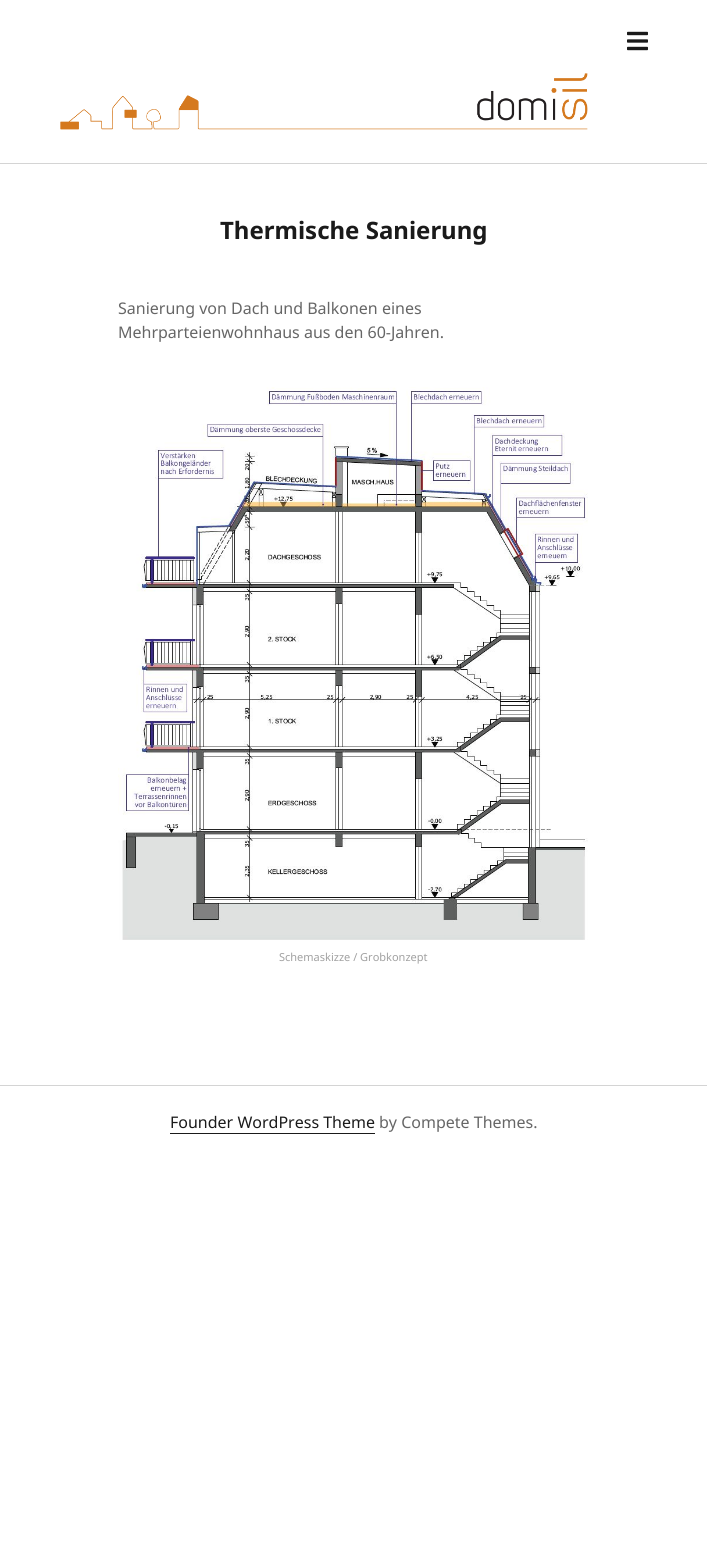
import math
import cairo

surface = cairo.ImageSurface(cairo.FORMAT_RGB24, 707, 1544)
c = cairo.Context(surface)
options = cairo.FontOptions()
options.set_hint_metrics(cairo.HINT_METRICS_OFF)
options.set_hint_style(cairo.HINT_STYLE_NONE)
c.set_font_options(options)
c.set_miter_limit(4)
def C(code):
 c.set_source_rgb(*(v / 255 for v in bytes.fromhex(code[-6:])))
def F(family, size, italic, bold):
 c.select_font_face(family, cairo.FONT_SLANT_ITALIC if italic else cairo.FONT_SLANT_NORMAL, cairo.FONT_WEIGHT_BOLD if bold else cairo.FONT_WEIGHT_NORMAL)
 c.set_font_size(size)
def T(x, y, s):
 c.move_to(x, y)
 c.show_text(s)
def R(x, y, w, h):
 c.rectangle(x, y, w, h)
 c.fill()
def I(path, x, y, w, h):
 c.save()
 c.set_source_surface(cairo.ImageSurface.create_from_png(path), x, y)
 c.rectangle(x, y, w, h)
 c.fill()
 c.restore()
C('ffffff')
c.paint()
C('d4d4d4')
R(0,163,707,1)
I('1.png',627,31,21,20)
I('2.png',60,73,528,57)
F('Noto Sans',24,0,1)
C('1a1a1a')
T(220,239,'Thermische Sanierung')
F('Noto Sans',16,0,0)
C('666666')
T(118,314,'Sanierung von Dach und Balkonen eines')
T(118,338,'Mehrparteienwohnhaus aus den 60-Jahren.')
I('3.png',118,387,470,553)
F('Noto Sans',11,0,0)
C('a1a1a1')
T(279,961,'Schemaskizze / Grobkonzept')
C('d4d4d4')
R(0,1085,707,1)
F('Noto Sans',16,0,0)
C('1a1a1a')
T(170,1128,'Founder WordPress Theme')
R(170,1133,205,1)
C('666666')
T(379,1128,'by Compete Themes.')
surface.write_to_png('o.png')
